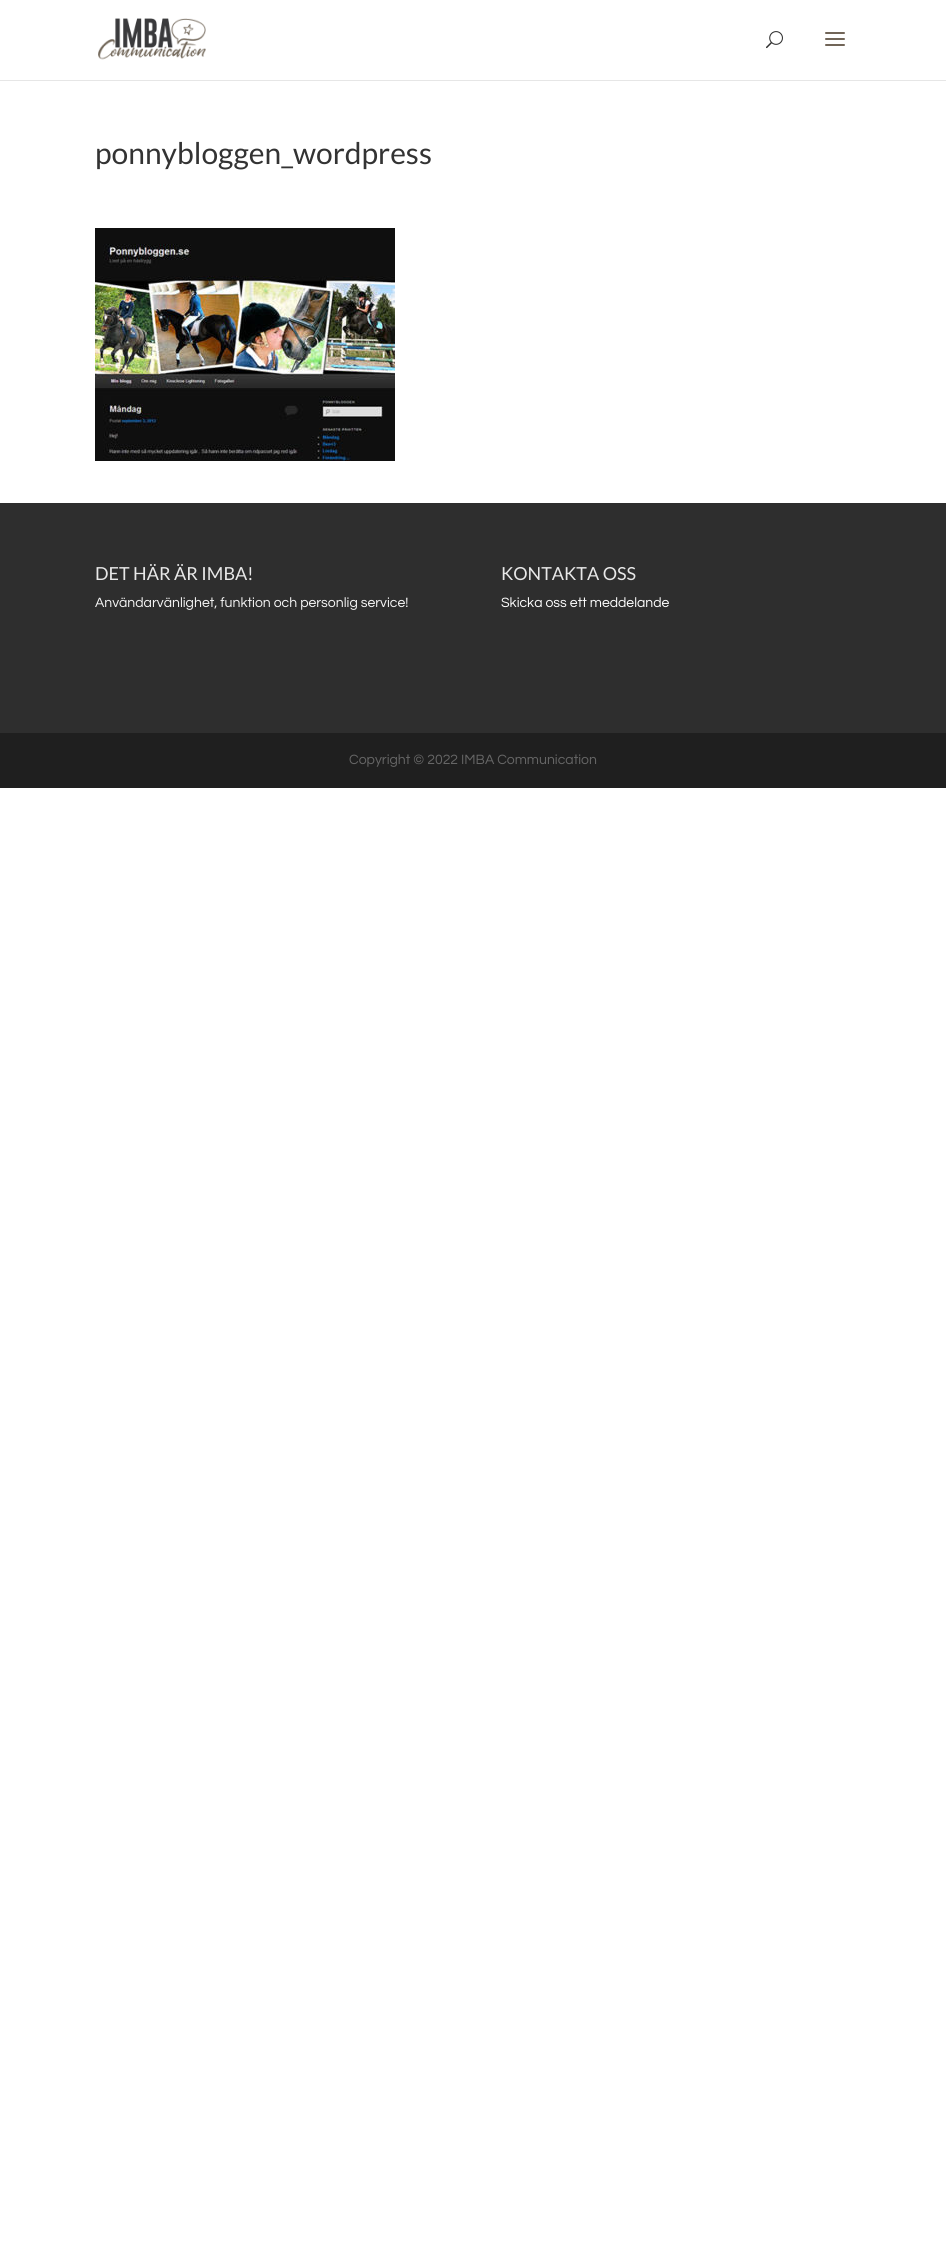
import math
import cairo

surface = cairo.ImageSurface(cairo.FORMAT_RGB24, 946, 2249)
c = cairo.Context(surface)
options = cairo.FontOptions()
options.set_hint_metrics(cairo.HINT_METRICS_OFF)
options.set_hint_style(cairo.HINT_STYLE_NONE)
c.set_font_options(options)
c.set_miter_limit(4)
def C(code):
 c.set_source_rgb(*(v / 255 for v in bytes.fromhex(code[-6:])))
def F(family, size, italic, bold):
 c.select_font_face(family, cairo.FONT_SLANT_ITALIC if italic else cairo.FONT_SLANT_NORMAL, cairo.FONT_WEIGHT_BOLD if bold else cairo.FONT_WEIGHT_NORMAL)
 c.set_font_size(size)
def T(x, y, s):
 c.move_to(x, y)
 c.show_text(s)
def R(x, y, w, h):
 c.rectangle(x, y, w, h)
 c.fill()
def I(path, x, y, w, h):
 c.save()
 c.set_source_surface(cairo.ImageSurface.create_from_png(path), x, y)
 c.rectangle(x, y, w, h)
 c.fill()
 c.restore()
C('ffffff')
c.paint()
C('e6e6e6')
R(0,80,946,1)
I('1.png',98,18,108,42)
I('2.png',766,31,17,18)
I('3.png',825,32,20,14)
F('Lato',30,0,0)
C('333333')
T(95,164,'ponnybloggen_wordpress')
I('4.png',95,228,300,233)
C('2e2e2e')
R(0,503,946,230)
F('Lato',18,0,0)
C('e8e8e8')
T(95,580,'DET HÄR ÄR IMBA!')
F('Questrial',14,0,0)
C('f7f7f7')
T(95,607,'Användarvänlighet, funktion och personlig service!')
F('Lato',18,0,0)
C('e8e8e8')
T(501,580,'KONTAKTA OSS')
F('Questrial',14,0,0)
C('ffffff')
T(501,607,'Skicka oss ett meddelande')
C('1f1f1f')
R(0,733,946,55)
C('666666')
T(349,764,'Copyright © 2022 IMBA Communication')
surface.write_to_png('o.png')
